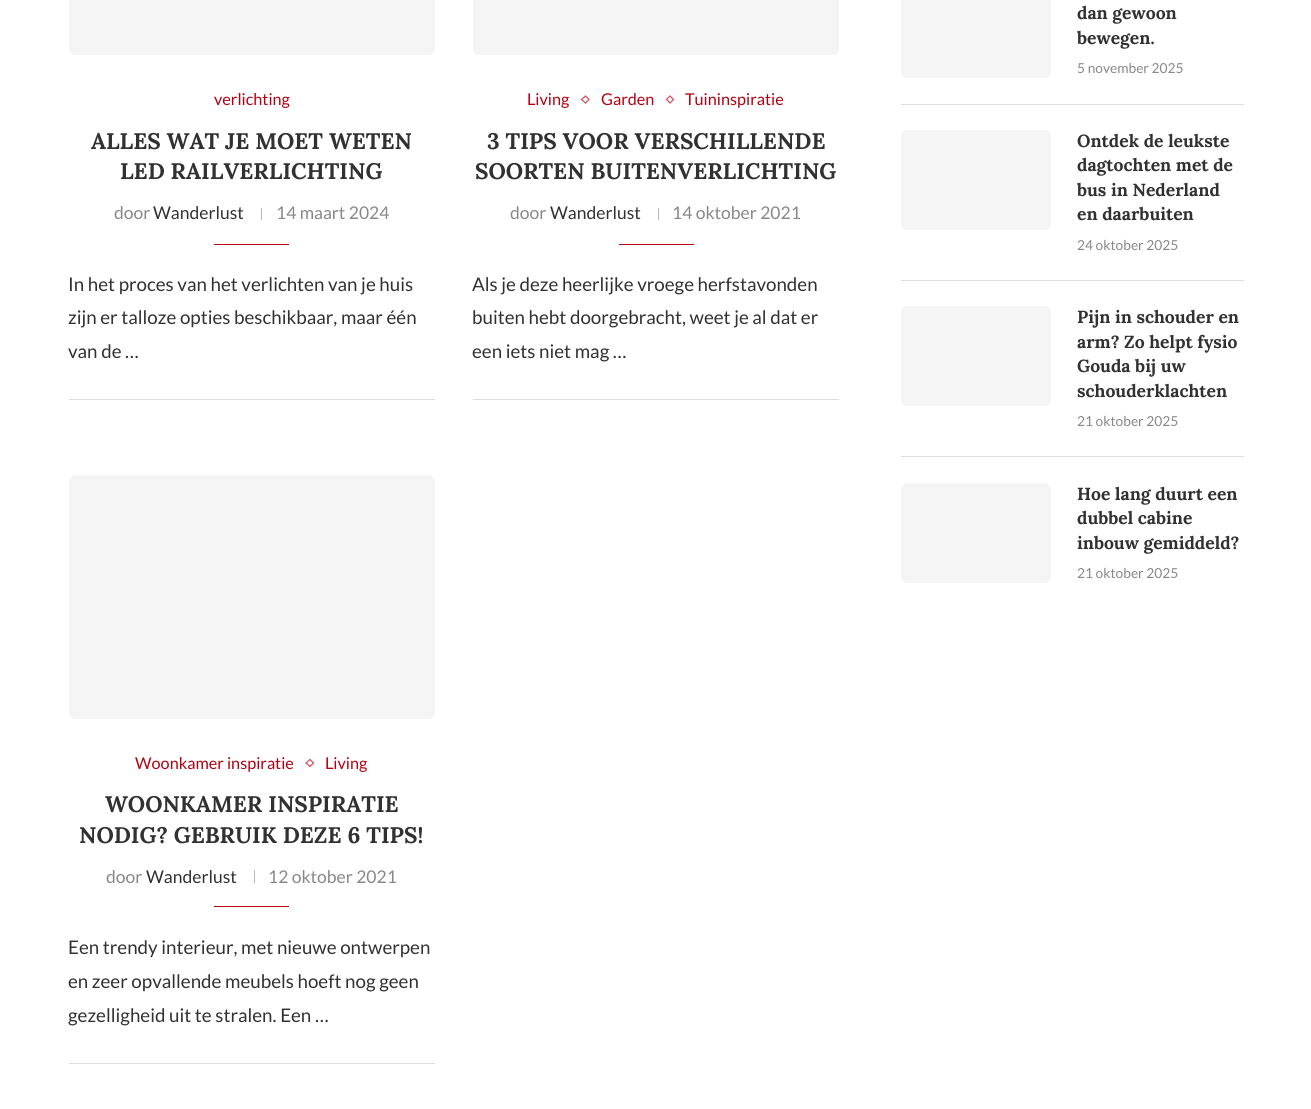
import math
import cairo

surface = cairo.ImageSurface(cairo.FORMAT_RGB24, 1311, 1109)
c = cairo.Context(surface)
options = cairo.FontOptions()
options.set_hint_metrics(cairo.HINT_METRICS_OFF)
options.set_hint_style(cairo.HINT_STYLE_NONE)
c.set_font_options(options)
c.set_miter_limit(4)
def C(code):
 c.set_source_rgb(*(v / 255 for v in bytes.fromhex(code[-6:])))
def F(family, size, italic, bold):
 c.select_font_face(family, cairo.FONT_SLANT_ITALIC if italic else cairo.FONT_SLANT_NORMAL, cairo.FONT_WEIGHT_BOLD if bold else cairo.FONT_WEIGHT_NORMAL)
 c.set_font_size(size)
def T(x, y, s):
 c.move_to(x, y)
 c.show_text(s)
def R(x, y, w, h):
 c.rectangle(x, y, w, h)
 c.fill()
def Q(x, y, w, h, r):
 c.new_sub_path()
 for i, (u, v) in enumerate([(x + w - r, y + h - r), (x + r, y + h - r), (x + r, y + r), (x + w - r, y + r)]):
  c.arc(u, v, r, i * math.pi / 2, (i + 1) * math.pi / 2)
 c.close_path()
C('ffffff')
c.paint()
C('f5f5f5')
Q(69,-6,366,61,6)
c.fill()
F('Lato',16.25,0,0)
C('b30010')
T(214,105,'verlichting')
F('Lora',22.5,0,1)
C('313131')
T(91,149,'ALLES WAT JE MOET WETEN')
T(120,179,'LED RAILVERLICHTING')
F('Lato',17.5,0,0)
C('888888')
T(114,219,'door')
C('313131')
T(153,219,'Wanderlust')
C('b8b8b8')
R(261,208,1,12)
C('888888')
T(276,219,'14 maart 2024')
C('b30010')
R(214,244,75,1)
F('Lato',18.75,0,0)
C('313131')
T(68,291,'In het proces van het verlichten van je huis')
T(68,324,'zijn er talloze opties beschikbaar, maar één')
T(68,358,'van de …')
C('dedede')
R(69,399,366,1)
C('f5f5f5')
Q(473,-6,366,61,6)
c.fill()
F('Lato',16.25,0,0)
C('b30010')
T(527,105,'Living')
c.new_path()
c.move_to(585.5,96)
c.line_to(589,99.5)
c.line_to(585.5,103)
c.line_to(581.5,99.5)
c.close_path()
C('ce5964')
c.set_line_width(1.3)
c.stroke()
C('b30010')
T(601,105,'Garden')
c.new_path()
c.move_to(670,96)
c.line_to(673.5,99.5)
c.line_to(670,103)
c.line_to(666.5,99.5)
c.close_path()
C('ce5964')
c.stroke()
C('b30010')
T(685,105,'Tuininspiratie')
F('Lora',22.5,0,1)
C('313131')
T(487,149,'3 TIPS VOOR VERSCHILLENDE')
T(475,179,'SOORTEN BUITENVERLICHTING')
F('Lato',17.5,0,0)
C('888888')
T(510,219,'door')
C('313131')
T(550,219,'Wanderlust')
C('b8b8b8')
R(658,208,1,12)
C('888888')
T(672,219,'14 oktober 2021')
C('b30010')
R(619,244,75,1)
F('Lato',18.75,0,0)
C('313131')
T(472,291,'Als je deze heerlijke vroege herfstavonden')
T(472,324,'buiten hebt doorgebracht, weet je al dat er')
T(472,358,'een iets niet mag …')
C('dedede')
R(473,399,366,1)
C('f5f5f5')
Q(69,475,366,244,6)
c.fill()
F('Lato',16.25,0,0)
C('b30010')
T(135,769,'Woonkamer inspiratie')
c.new_path()
c.move_to(310,759.5)
c.line_to(313.5,763)
c.line_to(310,766.5)
c.line_to(306,763)
c.close_path()
C('ce5964')
c.stroke()
C('b30010')
T(325,769,'Living')
F('Lora',22.5,0,1)
C('313131')
T(105,812,'WOONKAMER INSPIRATIE')
T(79,843,'NODIG? GEBRUIK DEZE 6 TIPS!')
F('Lato',17.5,0,0)
C('888888')
T(106,883,'door')
C('313131')
T(146,883,'Wanderlust')
C('b8b8b8')
R(254,870,1,13)
C('888888')
T(268,883,'12 oktober 2021')
C('b30010')
R(214,906,75,1)
F('Lato',18.75,0,0)
C('313131')
T(68,954,'Een trendy interieur, met nieuwe ontwerpen')
T(68,988,'en zeer opvallende meubels hoeft nog geen')
T(68,1022,'gezelligheid uit te stralen. Een …')
C('dedede')
R(69,1063,366,1)
R(901,104,343,1)
C('f5f5f5')
Q(901,-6,150,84,6)
c.fill()
F('Lora',17.5,0,1)
C('313131')
T(1077,19,'dan gewoon')
T(1077,44,'bewegen.')
F('Lato',13.75,0,0)
C('888888')
T(1077,73,'5 november 2025')
C('dedede')
R(901,280,343,1)
C('f5f5f5')
Q(901,130,150,100,6)
c.fill()
F('Lora',17.5,0,1)
C('313131')
T(1077,147,'Ontdek de leukste')
T(1077,171,'dagtochten met de')
T(1077,196,'bus in Nederland')
T(1077,220,'en daarbuiten')
F('Lato',13.75,0,0)
C('888888')
T(1077,250,'24 oktober 2025')
C('dedede')
R(901,456,343,1)
C('f5f5f5')
Q(901,306,150,100,6)
c.fill()
F('Lora',17.5,0,1)
C('313131')
T(1077,323,'Pijn in schouder en')
T(1077,348,'arm? Zo helpt fysio')
T(1077,372,'Gouda bij uw')
T(1077,397,'schouderklachten')
F('Lato',13.75,0,0)
C('888888')
T(1077,426,'21 oktober 2025')
C('f5f5f5')
Q(901,483,150,100,6)
c.fill()
F('Lora',17.5,0,1)
C('313131')
T(1077,500,'Hoe lang duurt een')
T(1077,524,'dubbel cabine')
T(1077,549,'inbouw gemiddeld?')
F('Lato',13.75,0,0)
C('888888')
T(1077,578,'21 oktober 2025')
surface.write_to_png('o.png')
